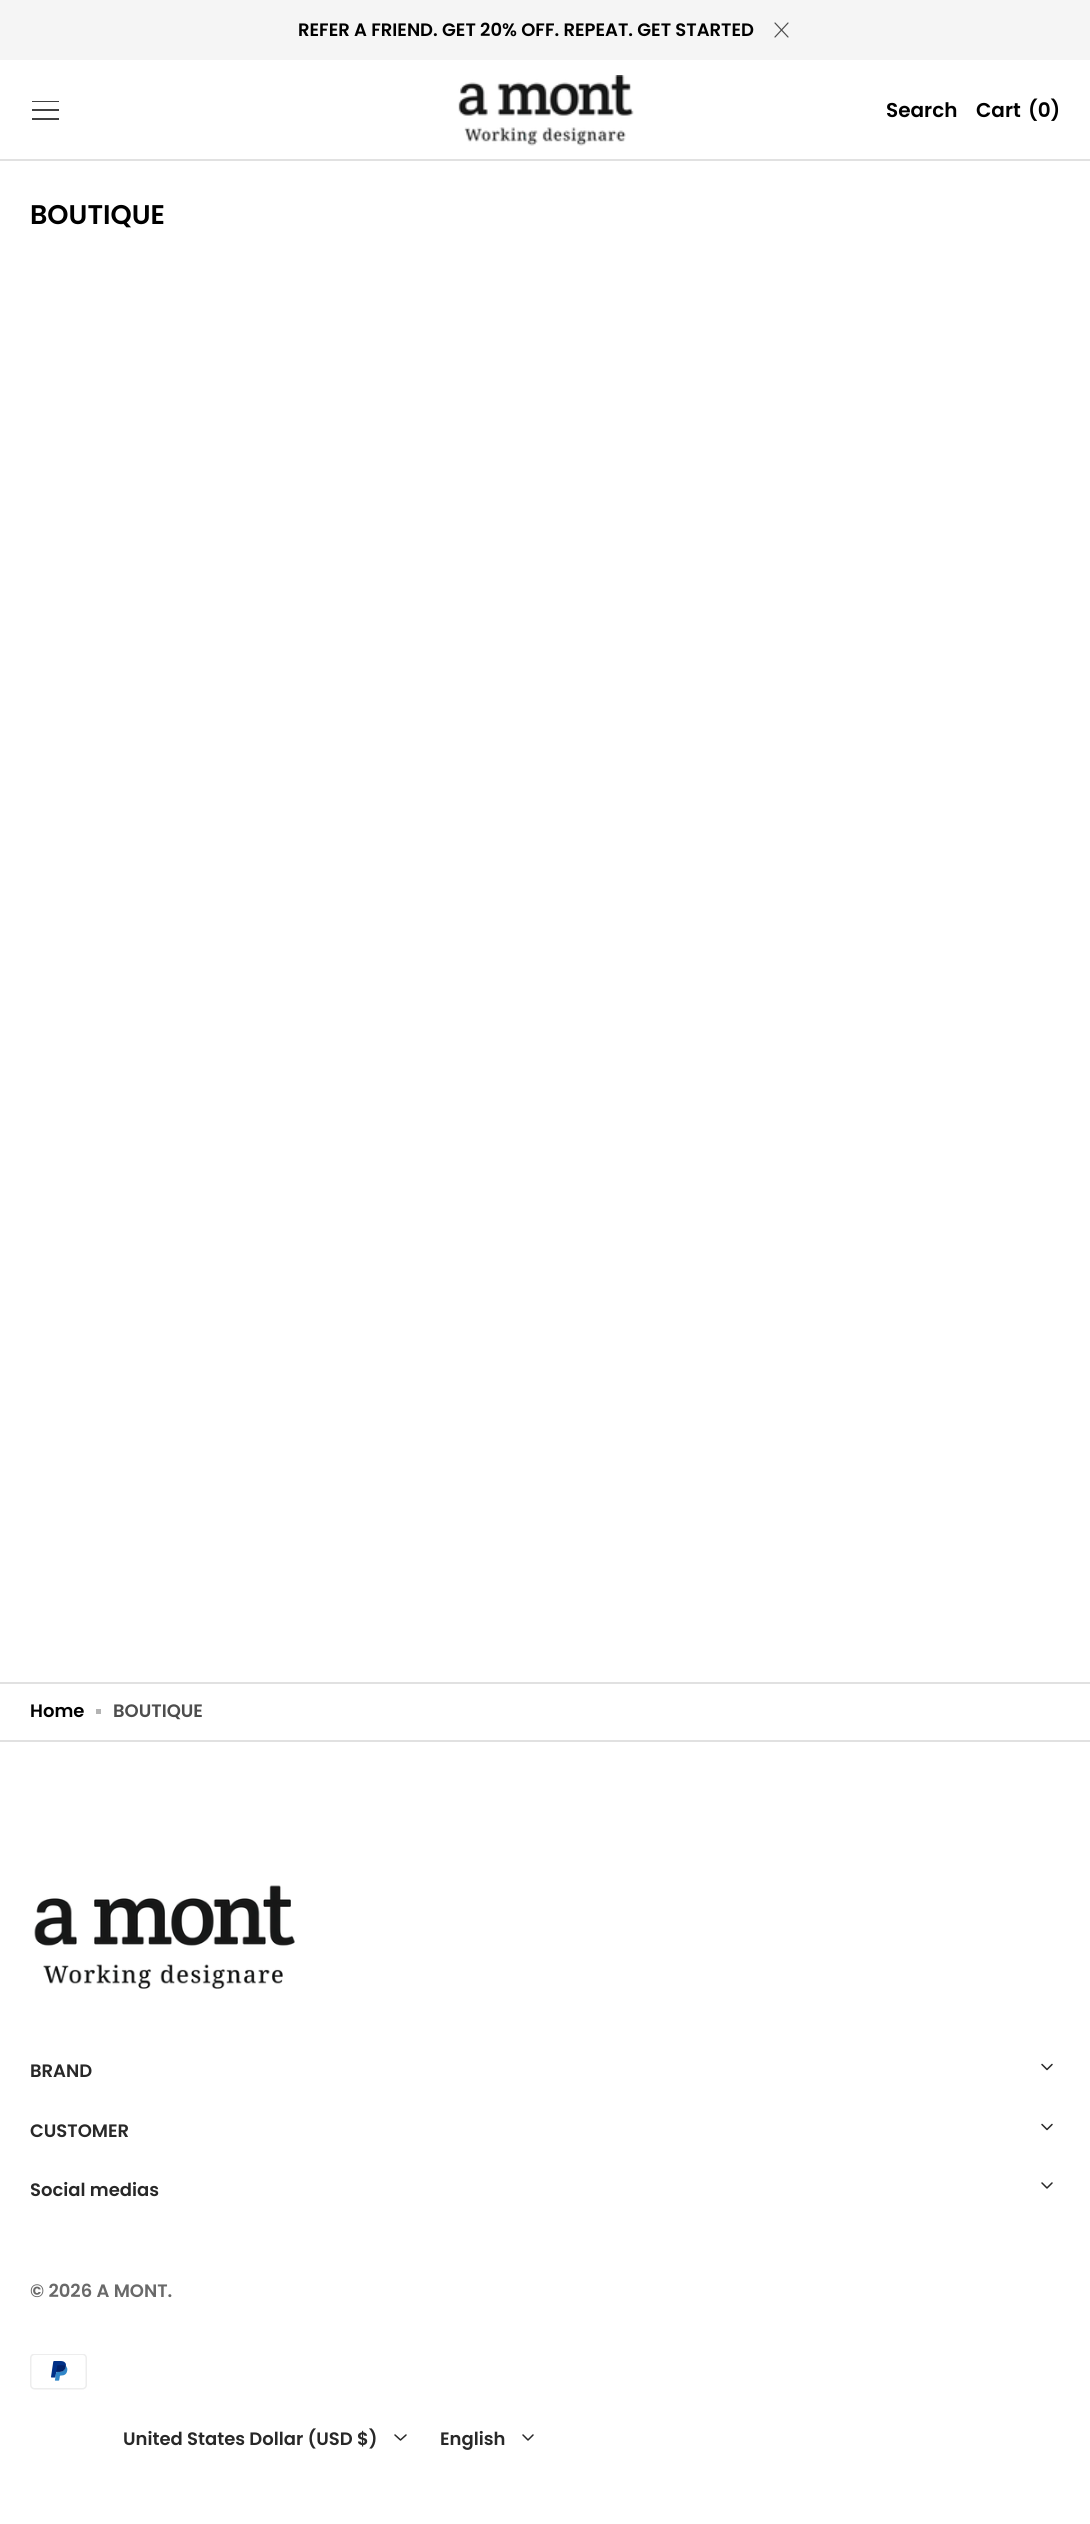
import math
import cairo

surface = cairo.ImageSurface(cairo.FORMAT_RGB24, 1090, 2524)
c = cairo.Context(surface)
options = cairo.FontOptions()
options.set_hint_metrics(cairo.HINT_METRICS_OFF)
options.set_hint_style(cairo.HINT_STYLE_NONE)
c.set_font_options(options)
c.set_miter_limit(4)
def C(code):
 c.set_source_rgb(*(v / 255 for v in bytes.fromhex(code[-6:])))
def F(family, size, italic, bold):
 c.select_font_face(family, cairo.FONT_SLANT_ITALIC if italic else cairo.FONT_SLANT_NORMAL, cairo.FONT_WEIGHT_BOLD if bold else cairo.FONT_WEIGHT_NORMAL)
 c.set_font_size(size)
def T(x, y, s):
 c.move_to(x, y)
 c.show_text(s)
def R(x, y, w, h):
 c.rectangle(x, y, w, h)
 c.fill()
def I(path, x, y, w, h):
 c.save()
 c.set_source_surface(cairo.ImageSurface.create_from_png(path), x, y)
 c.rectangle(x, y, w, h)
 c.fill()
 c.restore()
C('ffffff')
c.paint()
C('f5f5f5')
R(0,0,1090,60)
F('Poppins SemiBold',18,0,0)
C('000000')
T(298,36,'REFER A FRIEND. GET 20% OFF. REPEAT. GET STARTED')
c.new_path()
c.move_to(788,23)
c.line_to(775,37)
c.move_to(788,37)
c.line_to(775,23)
C('4d4d4d')
c.set_line_width(1.2)
c.set_line_cap(cairo.LINE_CAP_ROUND)
c.set_line_join(cairo.LINE_JOIN_ROUND)
c.stroke()
C('404040')
R(32,101,27,1)
R(32,109,27,2)
R(32,118,27,2)
I('1.png',458,75,176,71)
F('Poppins SemiBold',20,0,0)
C('000000')
T(886,117,'Search')
T(976,117,'Cart')
T(1028,117,'(0)')
C('e1e1e1')
R(0,159,1090,2)
F('Poppins SemiBold',27,0,0)
C('000000')
T(30,224,'BOUTIQUE')
C('e1e1e1')
R(0,1682,1090,2)
F('Poppins SemiBold',18,0,0)
C('000000')
T(30,1717,'Home')
C('b3b3b3')
R(96,1709,5,5)
C('4d4d4d')
T(113,1717,'BOUTIQUE')
C('e1e1e1')
R(0,1740,1090,2)
I('2.png',34,1885,261,104)
C('282828')
T(30,2077,'BRAND')
c.new_path()
c.move_to(1052,2064.5)
c.line_to(1047,2069.5)
c.line_to(1042,2064.5)
c.set_line_width(1.5)
c.stroke()
T(30,2137,'CUSTOMER')
c.new_path()
c.move_to(1052,2124.5)
c.line_to(1047,2129.5)
c.line_to(1042,2124.5)
c.stroke()
T(30,2196,'Social medias')
c.new_path()
c.move_to(1052,2183)
c.line_to(1047,2188)
c.line_to(1042,2183)
c.stroke()
C('696969')
T(30,2297,'© 2026 A MONT.')
I('3.png',30,2354,57,36)
C('282828')
T(123,2445,'United States Dollar (USD $)')
c.new_path()
c.move_to(406,2435)
c.line_to(400.5,2440)
c.line_to(395,2435)
c.stroke()
T(440,2445,'English')
c.new_path()
c.move_to(533,2435)
c.line_to(528,2440)
c.line_to(523,2435)
c.stroke()
surface.write_to_png('o.png')
